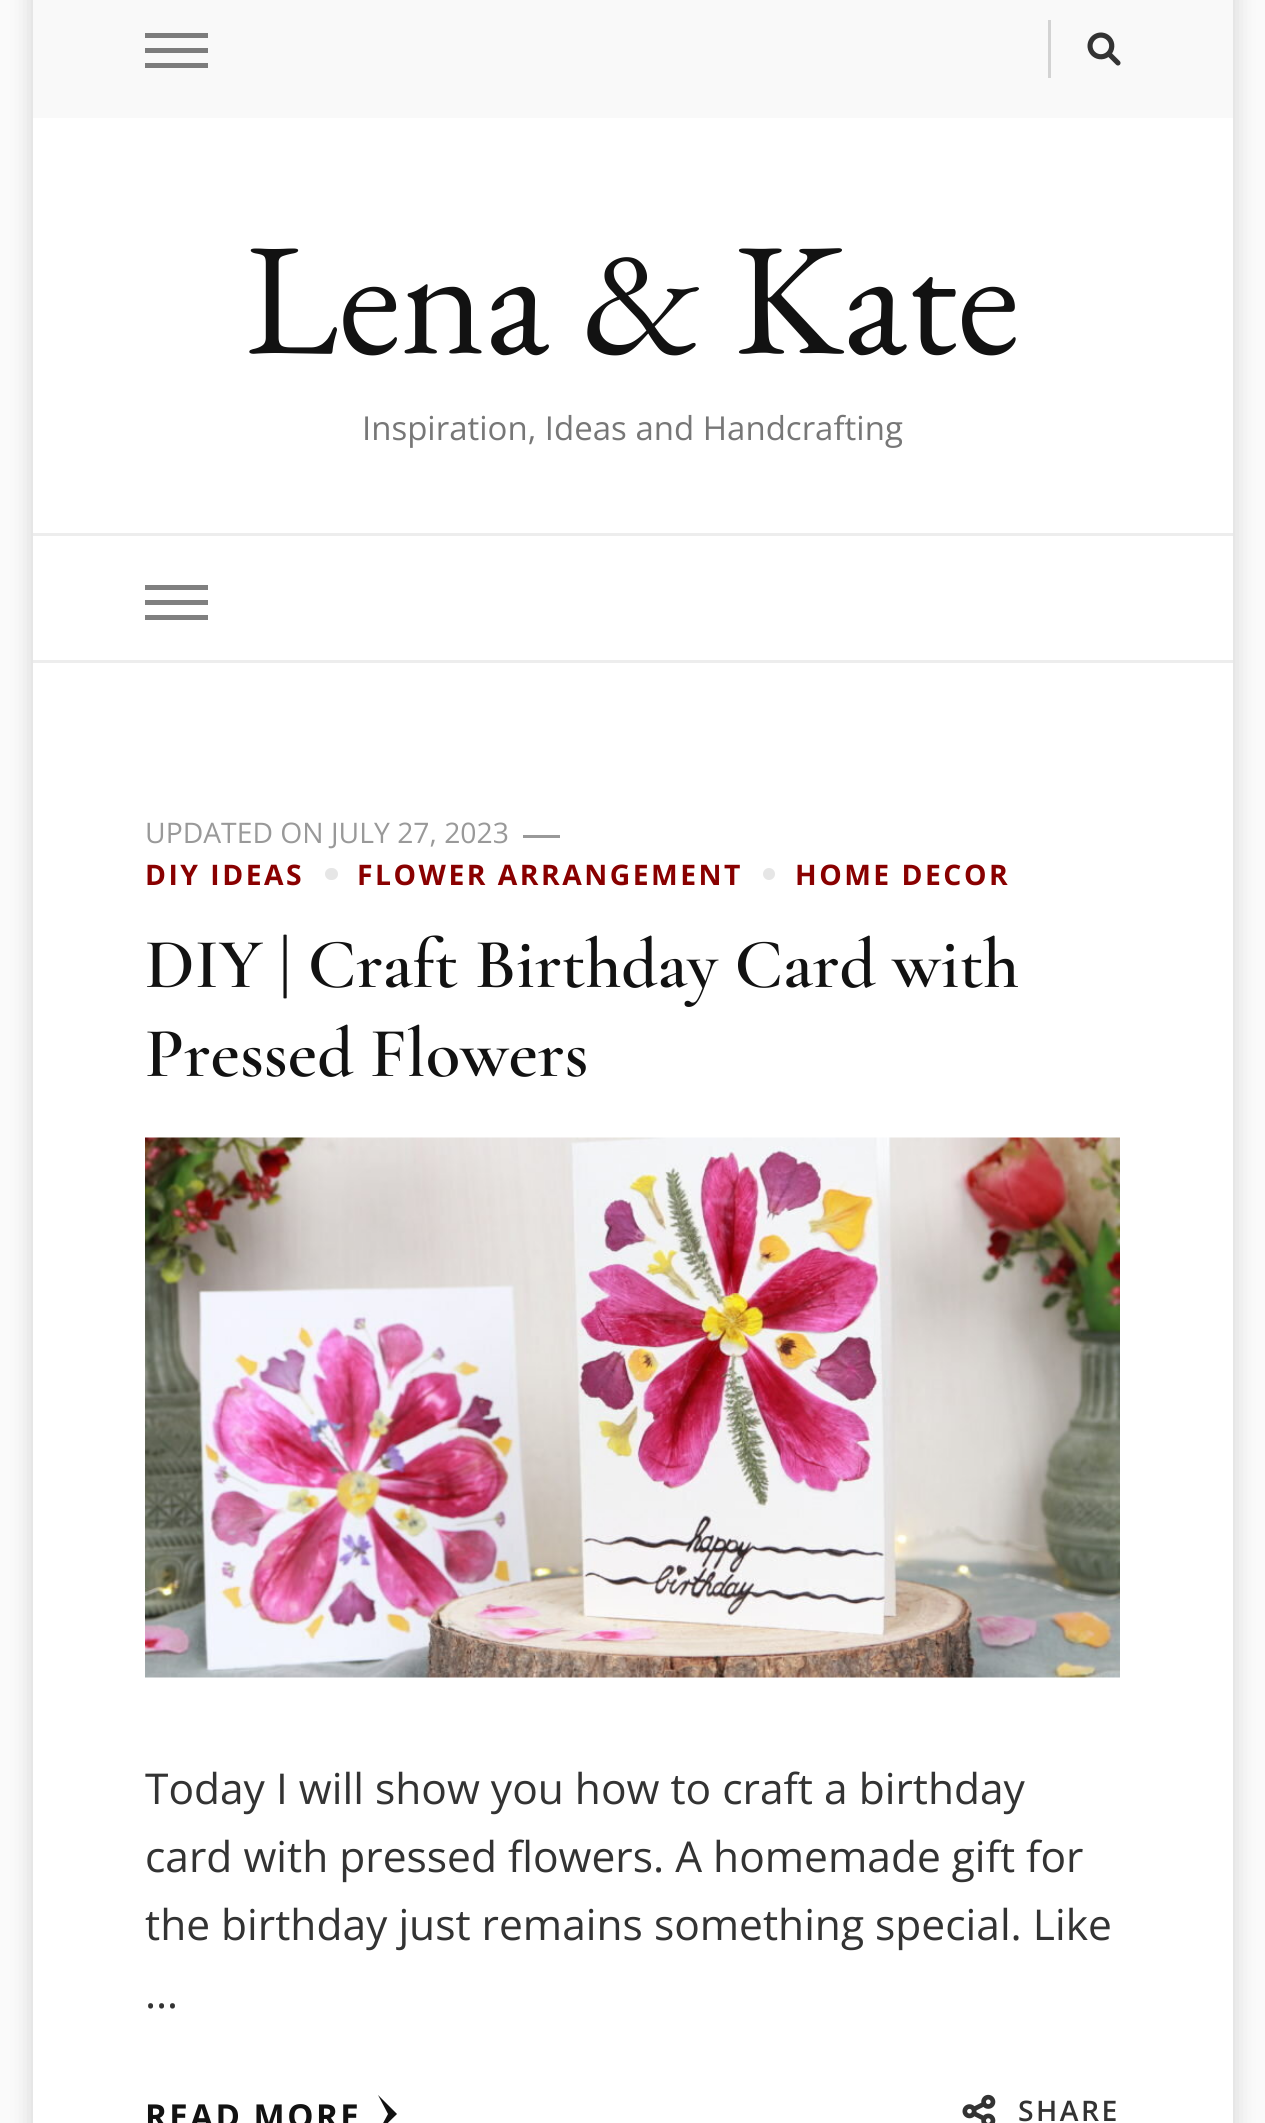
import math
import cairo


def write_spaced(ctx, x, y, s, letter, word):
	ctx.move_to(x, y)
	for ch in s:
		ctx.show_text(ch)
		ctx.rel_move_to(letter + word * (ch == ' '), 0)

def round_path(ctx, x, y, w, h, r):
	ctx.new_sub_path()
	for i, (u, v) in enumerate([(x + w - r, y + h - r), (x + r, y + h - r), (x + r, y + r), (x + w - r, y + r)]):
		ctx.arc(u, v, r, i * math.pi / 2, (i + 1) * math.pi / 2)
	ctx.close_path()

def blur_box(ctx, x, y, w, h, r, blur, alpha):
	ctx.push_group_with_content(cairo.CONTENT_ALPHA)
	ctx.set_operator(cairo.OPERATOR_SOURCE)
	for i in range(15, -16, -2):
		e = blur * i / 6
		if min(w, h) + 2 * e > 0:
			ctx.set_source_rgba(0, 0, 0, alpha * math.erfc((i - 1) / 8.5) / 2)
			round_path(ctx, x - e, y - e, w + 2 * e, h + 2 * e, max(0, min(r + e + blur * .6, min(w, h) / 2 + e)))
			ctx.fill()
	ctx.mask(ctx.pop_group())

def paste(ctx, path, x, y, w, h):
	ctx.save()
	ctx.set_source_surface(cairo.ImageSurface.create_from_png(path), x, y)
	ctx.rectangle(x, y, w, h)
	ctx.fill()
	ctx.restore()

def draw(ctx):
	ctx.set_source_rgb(0.98, 0.98, 0.98)
	ctx.paint()
	ctx.set_source_rgb(0, 0, 0)
	blur_box(ctx, 33, -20, 1200, 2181, 0, 12.5, 0.16)
	ctx.set_source_rgb(1, 1, 1)
	ctx.rectangle(33, 118, 1200, 2005)
	ctx.fill()
	ctx.set_source_rgb(0.973, 0.973, 0.973)
	ctx.rectangle(33, 0, 1200, 118)
	ctx.fill()
	ctx.set_source_rgb(0.486, 0.486, 0.486)
	ctx.rectangle(145, 33, 63, 5)
	ctx.rectangle(145, 48, 63, 5)
	ctx.rectangle(145, 63, 63, 5)
	ctx.fill()
	ctx.set_source_rgb(0.827, 0.827, 0.827)
	ctx.rectangle(1048, 20, 3, 58)
	ctx.fill()
	paste(ctx, 'media/1.png', 1087, 32, 34, 34)
	ctx.select_font_face('EB Garamond')
	ctx.set_font_size(160)
	ctx.set_source_rgb(0.071, 0.071, 0.071)
	ctx.move_to(245, 353)
	ctx.show_text('Lena & Kate')
	ctx.select_font_face('Open Sans')
	ctx.set_font_size(33)
	ctx.set_source_rgb(0.467, 0.467, 0.467)
	ctx.move_to(362, 440)
	ctx.show_text('Inspiration, Ideas and Handcrafting')
	ctx.set_source_rgb(0.929, 0.929, 0.929)
	ctx.rectangle(33, 533, 1200, 3)
	ctx.rectangle(33, 660, 1200, 3)
	ctx.fill()
	ctx.set_source_rgb(0.502, 0.502, 0.502)
	ctx.rectangle(145, 585, 63, 5)
	ctx.rectangle(145, 600, 63, 5)
	ctx.rectangle(145, 615, 63, 5)
	ctx.fill()
	ctx.set_font_size(28.3)
	ctx.set_source_rgb(0.6, 0.6, 0.6)
	ctx.move_to(145, 843)
	ctx.show_text('UPDATED ON JULY 27, 2023')
	ctx.rectangle(523, 835, 37, 3)
	ctx.fill()
	ctx.select_font_face('Open Sans', cairo.FONT_SLANT_NORMAL, cairo.FONT_WEIGHT_BOLD)
	ctx.set_source_rgb(0.537, 0, 0)
	write_spaced(ctx, 145, 885, 'DIY IDEAS', 2.5, 0)
	ctx.set_source_rgb(0.902, 0.902, 0.902)
	round_path(ctx, 325, 868, 13, 12, 6)
	ctx.fill()
	ctx.set_source_rgb(0.537, 0, 0)
	write_spaced(ctx, 357, 885, 'FLOWER ARRANGEMENT', 2.5, 0)
	ctx.set_source_rgb(0.902, 0.902, 0.902)
	ctx.new_path()
	ctx.arc(769, 874, 6, 0, 2 * math.pi)
	ctx.fill()
	ctx.set_source_rgb(0.537, 0, 0)
	write_spaced(ctx, 795, 885, 'HOME DECOR', 2.5, 0)
	ctx.select_font_face('Cormorant Garamond SemiBold')
	ctx.set_font_size(71)
	ctx.set_source_rgb(0.071, 0.071, 0.071)
	ctx.move_to(145, 987)
	ctx.show_text('DIY | Craft Birthday Card with')
	ctx.move_to(145, 1076)
	ctx.show_text('Pressed Flowers')
	paste(ctx, 'media/2.png', 145, 1137, 975, 541)
	ctx.select_font_face('Open Sans')
	ctx.set_font_size(42.5)
	ctx.set_source_rgb(0.2, 0.2, 0.2)
	for x, y, s in [
		(145, 1804, 'Today I will show you how to craft a birthday'),
		(145, 1872, 'card with pressed flowers. A homemade gift for'),
		(145, 1940, 'the birthday just remains something special. Like'),
		(145, 2008, '…'),
	]:
		ctx.move_to(x, y)
		ctx.show_text(s)
	ctx.select_font_face('Open Sans', cairo.FONT_SLANT_NORMAL, cairo.FONT_WEIGHT_BOLD)
	ctx.set_font_size(33)
	ctx.set_source_rgb(0.071, 0.071, 0.071)
	write_spaced(ctx, 145, 2128, 'READ MORE', 2.5, 0)
	ctx.new_path()
	ctx.move_to(397, 2114)
	ctx.line_to(378, 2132.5)
	ctx.line_to(388, 2114)
	ctx.line_to(378, 2095)
	ctx.close_path()
	ctx.fill()
	paste(ctx, 'media/3.png', 962, 2094, 34, 29)
	ctx.select_font_face('Open Sans SemiBold')
	ctx.set_font_size(28.3)
	ctx.set_source_rgb(0.2, 0.2, 0.2)
	write_spaced(ctx, 1018, 2121, 'SHARE', 2.5, 0)


surface = cairo.ImageSurface(cairo.FORMAT_RGB24, 1265, 2123)
ctx = cairo.Context(surface)
options = cairo.FontOptions()
options.set_hint_metrics(cairo.HINT_METRICS_OFF)
options.set_hint_style(cairo.HINT_STYLE_NONE)
ctx.set_font_options(options)
ctx.set_miter_limit(4)
draw(ctx)
surface.write_to_png('image.png')
